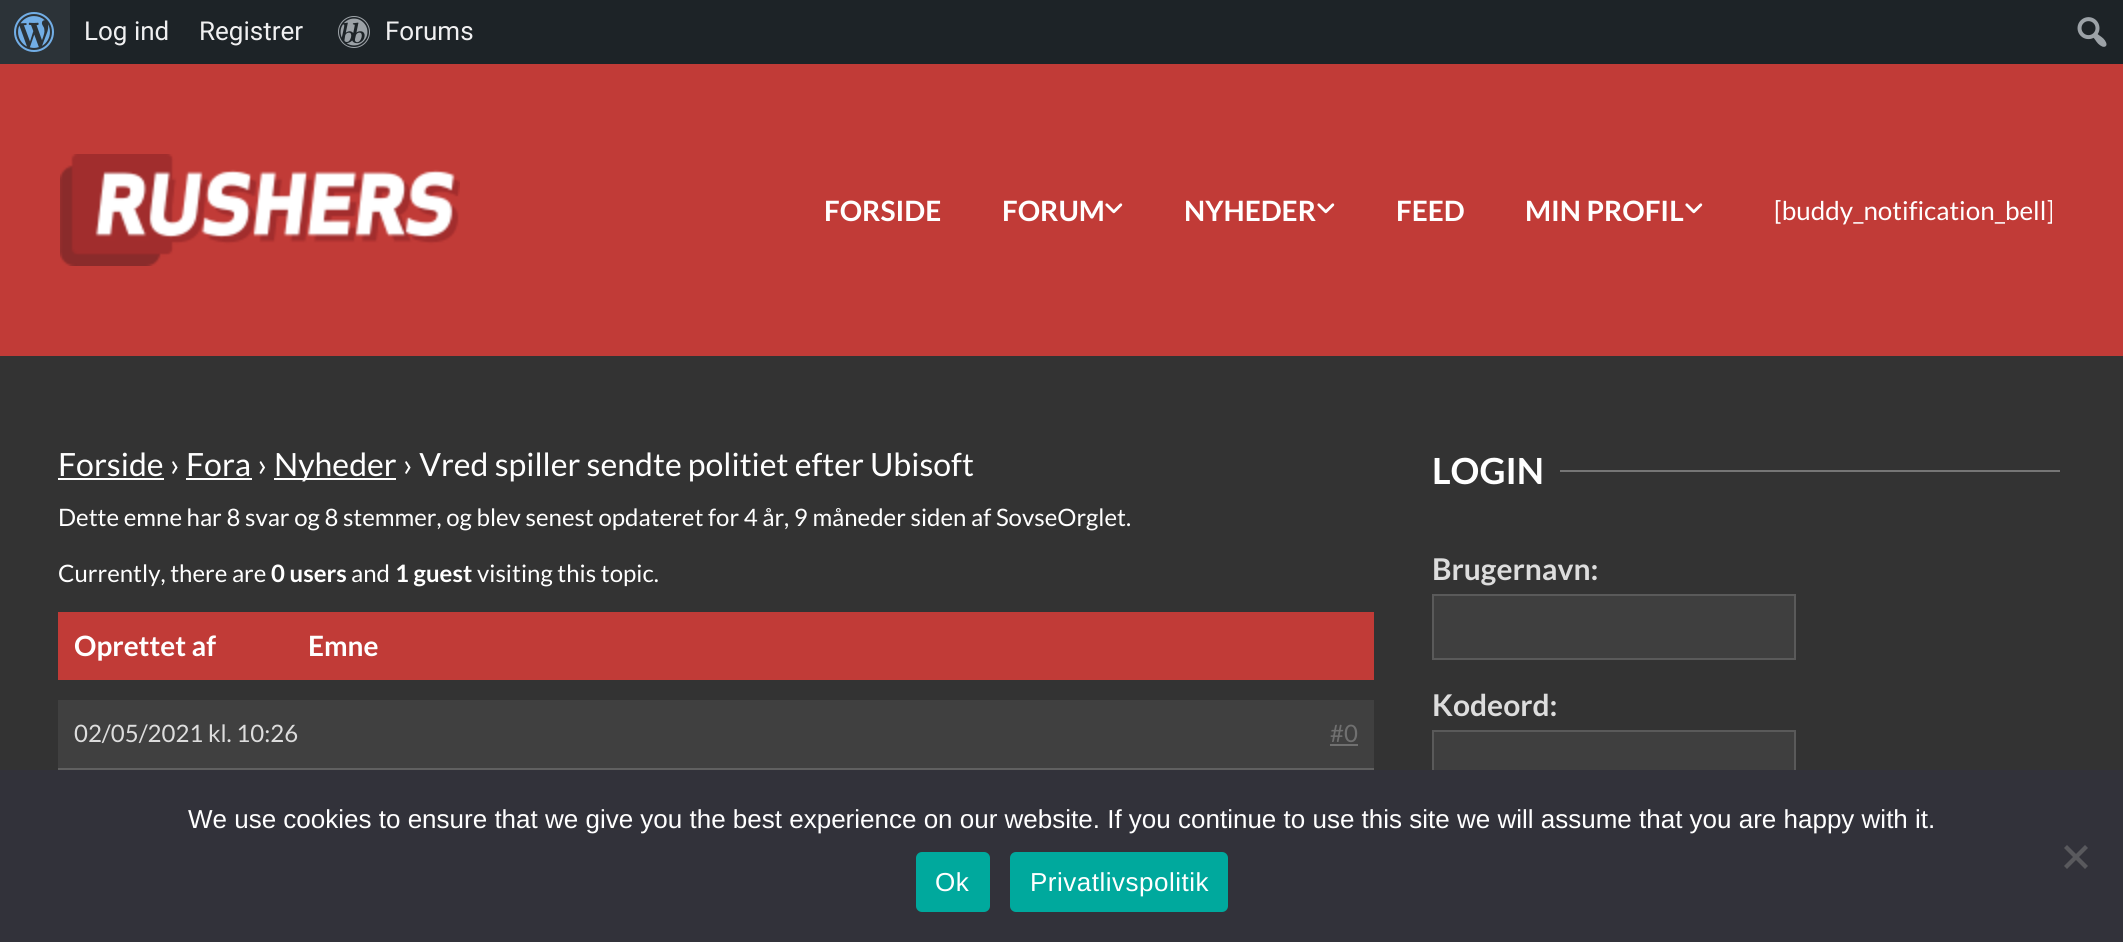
import math
import cairo


def write_spaced(ctx, x, y, s, letter, word):
	ctx.move_to(x, y)
	for ch in s:
		ctx.show_text(ch)
		ctx.rel_move_to(letter + word * (ch == ' '), 0)

def round_path(ctx, x, y, w, h, r):
	ctx.new_sub_path()
	for i, (u, v) in enumerate([(x + w - r, y + h - r), (x + r, y + h - r), (x + r, y + r), (x + w - r, y + r)]):
		ctx.arc(u, v, r, i * math.pi / 2, (i + 1) * math.pi / 2)
	ctx.close_path()

def paste(ctx, path, x, y, w, h):
	ctx.save()
	ctx.set_source_surface(cairo.ImageSurface.create_from_png(path), x, y)
	ctx.rectangle(x, y, w, h)
	ctx.fill()
	ctx.restore()

def draw(ctx):
	ctx.set_source_rgb(0.2, 0.2, 0.2)
	ctx.paint()
	ctx.set_source_rgb(0.114, 0.137, 0.153)
	ctx.rectangle(70, 0, 2053, 64)
	ctx.fill()
	ctx.set_source_rgb(0.173, 0.2, 0.22)
	ctx.rectangle(0, 0, 70, 64)
	ctx.fill()
	paste(ctx, 'media/1.png', 14, 12, 40, 40)
	ctx.select_font_face('Roboto')
	ctx.set_font_size(26)
	ctx.set_source_rgb(0.941, 0.941, 0.945)
	ctx.move_to(84, 40)
	ctx.show_text('Log ind')
	ctx.move_to(199, 40)
	ctx.show_text('Registrer')
	paste(ctx, 'media/2.png', 338, 16, 32, 32)
	ctx.move_to(385, 40)
	ctx.show_text('Forums')
	paste(ctx, 'media/3.png', 2077, 17, 30, 30)
	ctx.set_source_rgb(0.757, 0.231, 0.216)
	ctx.rectangle(0, 64, 2123, 292)
	ctx.fill()
	paste(ctx, 'media/4.png', 60, 154, 400, 112)
	ctx.select_font_face('Lato', cairo.FONT_SLANT_NORMAL, cairo.FONT_WEIGHT_BOLD)
	ctx.set_font_size(28)
	ctx.set_source_rgb(1, 1, 1)
	ctx.move_to(824, 221)
	ctx.show_text('FORSIDE')
	ctx.move_to(1002, 221)
	ctx.show_text('FORUM')
	paste(ctx, 'media/5.png', 1105, 203, 18, 11)
	ctx.move_to(1184, 221)
	ctx.show_text('NYHEDER')
	paste(ctx, 'media/5.png', 1317, 203, 18, 11)
	ctx.move_to(1396, 221)
	ctx.show_text('FEED')
	ctx.move_to(1525, 221)
	ctx.show_text('MIN PROFIL')
	paste(ctx, 'media/5.png', 1685, 203, 18, 11)
	ctx.select_font_face('Lato')
	ctx.set_font_size(26)
	ctx.move_to(1774, 220)
	ctx.show_text('[buddy_notification_bell]')
	ctx.set_font_size(32)
	ctx.move_to(58, 476)
	ctx.show_text('Forside › Fora ›')
	ctx.rectangle(58, 478, 106, 2)
	ctx.fill()
	ctx.rectangle(274, 478, 122, 2)
	ctx.fill()
	ctx.move_to(274, 476)
	ctx.show_text('Nyheder › Vred spiller sendte politiet efter Ubisoft')
	ctx.rectangle(186, 478, 66, 2)
	ctx.fill()
	ctx.set_font_size(24)
	ctx.move_to(58, 526)
	ctx.show_text('Dette emne har 8 svar og 8 stemmer, og blev senest opdateret for 4 år, 9 måneder siden af SovseOrglet.')
	ctx.move_to(58, 582)
	ctx.show_text('Currently, there are')
	ctx.select_font_face('Lato', cairo.FONT_SLANT_NORMAL, cairo.FONT_WEIGHT_BOLD)
	ctx.move_to(271, 582)
	ctx.show_text('0 users')
	ctx.select_font_face('Lato')
	ctx.move_to(351, 582)
	ctx.show_text('and')
	ctx.select_font_face('Lato', cairo.FONT_SLANT_NORMAL, cairo.FONT_WEIGHT_BOLD)
	ctx.move_to(395, 582)
	ctx.show_text('1 guest')
	ctx.select_font_face('Lato')
	ctx.move_to(477, 582)
	ctx.show_text('visiting this topic.')
	ctx.set_source_rgb(0.251, 0.251, 0.251)
	ctx.rectangle(58, 700, 1316, 68)
	ctx.fill()
	ctx.set_source_rgb(0.757, 0.231, 0.216)
	ctx.rectangle(58, 612, 1316, 68)
	ctx.fill()
	ctx.select_font_face('Lato', cairo.FONT_SLANT_NORMAL, cairo.FONT_WEIGHT_BOLD)
	ctx.set_font_size(28)
	ctx.set_source_rgb(1, 1, 1)
	ctx.move_to(74, 656)
	ctx.show_text('Oprettet af')
	ctx.move_to(308, 656)
	ctx.show_text('Emne')
	ctx.set_source_rgb(0.376, 0.376, 0.376)
	ctx.rectangle(58, 768, 1316, 2)
	ctx.fill()
	ctx.select_font_face('Lato')
	ctx.set_font_size(24)
	ctx.set_source_rgb(0.867, 0.867, 0.867)
	ctx.move_to(74, 742)
	ctx.show_text('02/05/2021 kl. 10:26')
	ctx.set_source_rgb(0.439, 0.439, 0.439)
	ctx.move_to(1330, 742)
	ctx.show_text('#0')
	ctx.rectangle(1330, 744, 28, 2)
	ctx.fill()
	ctx.select_font_face('Lato', cairo.FONT_SLANT_NORMAL, cairo.FONT_WEIGHT_BOLD)
	ctx.set_font_size(36)
	ctx.set_source_rgb(1, 1, 1)
	ctx.move_to(1432, 484)
	ctx.show_text('LOGIN')
	ctx.set_source_rgb(0.463, 0.463, 0.463)
	ctx.rectangle(1560, 470, 500, 2)
	ctx.fill()
	ctx.set_font_size(30)
	ctx.set_source_rgb(0.867, 0.867, 0.867)
	ctx.move_to(1432, 580)
	ctx.show_text('Brugernavn:')
	ctx.set_source_rgb(0.247, 0.247, 0.247)
	ctx.rectangle(1433, 595, 362, 64)
	ctx.fill_preserve()
	ctx.set_source_rgb(0.353, 0.353, 0.353)
	ctx.stroke()
	ctx.set_source_rgb(0.867, 0.867, 0.867)
	ctx.move_to(1432, 716)
	ctx.show_text('Kodeord:')
	ctx.set_source_rgb(0.247, 0.247, 0.247)
	ctx.rectangle(1434, 732, 360, 38)
	ctx.fill()
	ctx.rectangle(1433, 731, 362, 64)
	ctx.set_source_rgb(0.353, 0.353, 0.353)
	ctx.stroke()
	ctx.set_source_rgb(0.196, 0.196, 0.227)
	ctx.rectangle(0, 770, 2123, 172)
	ctx.fill()
	ctx.select_font_face('Liberation Sans')
	ctx.set_font_size(26)
	ctx.set_source_rgb(1, 1, 1)
	ctx.move_to(188, 828)
	ctx.show_text('We use cookies to ensure that we give you the best experience on our website. If you continue to use this site we will assume that you are happy with it.')
	ctx.set_source_rgb(0.349, 0.349, 0.365)
	ctx.new_path()
	ctx.move_to(2085, 845)
	ctx.line_to(2088, 848)
	ctx.line_to(2067, 869)
	ctx.line_to(2064, 866)
	ctx.close_path()
	ctx.fill()
	ctx.new_path()
	ctx.move_to(2064, 848)
	ctx.line_to(2067, 845)
	ctx.line_to(2088, 866)
	ctx.line_to(2085, 869)
	ctx.close_path()
	ctx.fill()
	ctx.set_source_rgb(0, 0.663, 0.616)
	round_path(ctx, 916, 852, 74, 60, 6)
	ctx.fill()
	ctx.set_source_rgb(1, 1, 1)
	write_spaced(ctx, 935, 891, 'Ok', 0.5, 0)
	ctx.set_source_rgb(0, 0.663, 0.616)
	round_path(ctx, 1010, 852, 218, 60, 6)
	ctx.fill()
	ctx.set_source_rgb(1, 1, 1)
	write_spaced(ctx, 1030, 891, 'Privatlivspolitik', 0.5, 0)


surface = cairo.ImageSurface(cairo.FORMAT_RGB24, 2123, 942)
ctx = cairo.Context(surface)
options = cairo.FontOptions()
options.set_hint_metrics(cairo.HINT_METRICS_OFF)
options.set_hint_style(cairo.HINT_STYLE_NONE)
ctx.set_font_options(options)
ctx.set_miter_limit(4)
draw(ctx)
surface.write_to_png('image.png')
